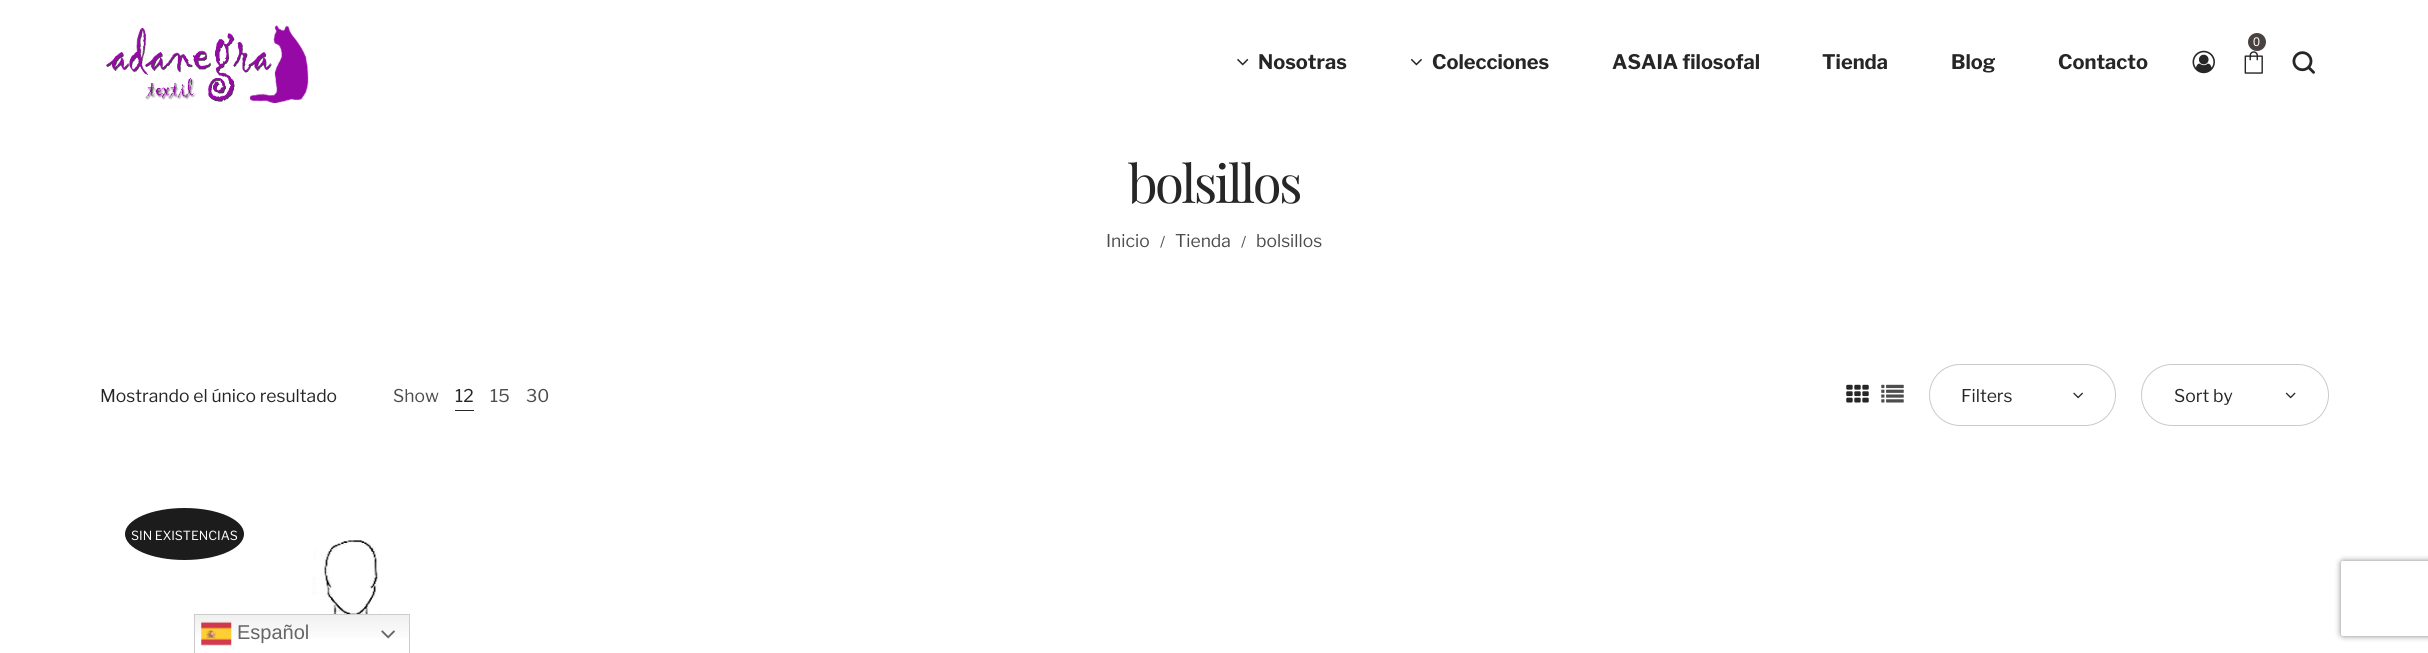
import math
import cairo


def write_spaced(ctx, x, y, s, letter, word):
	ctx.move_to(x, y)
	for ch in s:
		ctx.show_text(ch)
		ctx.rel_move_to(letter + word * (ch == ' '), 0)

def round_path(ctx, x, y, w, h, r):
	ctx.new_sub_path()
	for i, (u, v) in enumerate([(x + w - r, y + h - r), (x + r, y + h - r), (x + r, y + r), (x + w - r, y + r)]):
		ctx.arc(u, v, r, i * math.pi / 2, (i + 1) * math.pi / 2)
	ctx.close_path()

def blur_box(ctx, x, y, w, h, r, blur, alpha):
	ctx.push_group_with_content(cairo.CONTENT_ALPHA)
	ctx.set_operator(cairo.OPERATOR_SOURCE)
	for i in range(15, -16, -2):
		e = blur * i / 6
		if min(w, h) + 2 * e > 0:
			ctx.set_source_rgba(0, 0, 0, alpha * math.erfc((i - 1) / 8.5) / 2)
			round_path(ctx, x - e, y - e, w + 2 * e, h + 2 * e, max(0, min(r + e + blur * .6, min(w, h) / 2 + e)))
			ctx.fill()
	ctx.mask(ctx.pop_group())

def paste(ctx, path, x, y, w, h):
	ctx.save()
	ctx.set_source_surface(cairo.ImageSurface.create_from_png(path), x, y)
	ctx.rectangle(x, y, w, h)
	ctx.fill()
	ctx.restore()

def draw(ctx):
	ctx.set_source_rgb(1, 1, 1)
	ctx.paint()
	paste(ctx, 'media/1.png', 106, 25, 203, 78)
	ctx.set_source_rgb(0.29, 0.255, 0.255)
	ctx.arc(2257, 42, 9, 0, 2 * math.pi)
	ctx.fill()
	ctx.select_font_face('Liberation Sans')
	ctx.set_font_size(12.5)
	ctx.set_source_rgb(1, 1, 1)
	ctx.move_to(2253, 46)
	ctx.show_text('0')
	paste(ctx, 'media/2.png', 2244, 51, 19, 23)
	paste(ctx, 'media/3.png', 1237, 58, 12, 8)
	ctx.select_font_face('Libre Franklin', cairo.FONT_SLANT_NORMAL, cairo.FONT_WEIGHT_BOLD)
	ctx.set_font_size(20)
	ctx.set_source_rgb(0.149, 0.149, 0.149)
	ctx.move_to(1258, 69)
	ctx.show_text('Nosotras')
	paste(ctx, 'media/4.png', 1410, 58, 12, 8)
	for x, y, s in [
		(1432, 69, 'Colecciones'),
		(1612, 69, 'ASAIA filosofal'),
		(1822, 69, 'Tienda'),
		(1951, 69, 'Blog'),
		(2058, 69, 'Contacto'),
	]:
		ctx.move_to(x, y)
		ctx.show_text(s)
	paste(ctx, 'media/5.png', 2192, 50, 23, 24)
	paste(ctx, 'media/6.png', 2292, 51, 23, 23)
	ctx.select_font_face('Playfair Display')
	ctx.set_font_size(52.5)
	write_spaced(ctx, 1128, 203, 'bolsillos', -2.5, 0)
	ctx.select_font_face('Libre Franklin')
	ctx.set_font_size(17.5)
	ctx.set_source_rgb(0.302, 0.302, 0.302)
	ctx.move_to(1106, 247)
	ctx.show_text('Inicio')
	ctx.set_font_size(15)
	ctx.move_to(1160, 247)
	ctx.show_text('/')
	ctx.set_font_size(17.5)
	ctx.move_to(1175, 247)
	ctx.show_text('Tienda')
	ctx.set_font_size(15)
	ctx.move_to(1241, 247)
	ctx.show_text('/')
	ctx.set_font_size(17.5)
	ctx.move_to(1256, 247)
	ctx.show_text('bolsillos')
	ctx.set_source_rgb(0.149, 0.149, 0.149)
	ctx.move_to(100, 402)
	ctx.show_text('Mostrando el único resultado')
	ctx.set_source_rgb(0.302, 0.302, 0.302)
	ctx.move_to(393, 402)
	ctx.show_text('Show')
	ctx.set_source_rgb(0.149, 0.149, 0.149)
	ctx.rectangle(455, 410, 19, 1)
	ctx.fill()
	ctx.move_to(455, 402)
	ctx.show_text('12')
	ctx.set_source_rgb(0.302, 0.302, 0.302)
	ctx.move_to(490, 402)
	ctx.show_text('15')
	ctx.move_to(526, 402)
	ctx.show_text('30')
	paste(ctx, 'media/7.png', 1846, 384, 23, 19)
	paste(ctx, 'media/8.png', 1881, 384, 23, 19)
	round_path(ctx, 1929.5, 364.5, 186, 61, 30.5)
	ctx.set_source_rgb(0.792, 0.792, 0.792)
	ctx.set_line_width(1)
	ctx.stroke()
	ctx.set_source_rgb(0.149, 0.149, 0.149)
	ctx.move_to(1961, 402)
	ctx.show_text('Filters')
	paste(ctx, 'media/9.png', 2073, 392, 10, 7)
	round_path(ctx, 2141.5, 364.5, 187, 61, 30.5)
	ctx.set_source_rgb(0.792, 0.792, 0.792)
	ctx.stroke()
	ctx.set_source_rgb(0.149, 0.149, 0.149)
	ctx.move_to(2174, 402)
	ctx.show_text('Sort by')
	paste(ctx, 'media/10.png', 2285, 392, 11, 7)
	ctx.set_source_rgb(0.11, 0.11, 0.11)
	ctx.new_path()
	ctx.move_to(184.5, 508)
	ctx.curve_to(217.5, 508, 244, 519.5, 244, 534)
	ctx.curve_to(244, 548.5, 217.5, 560, 184.5, 560)
	ctx.curve_to(151.5, 560, 125, 548.5, 125, 534)
	ctx.curve_to(125, 519.5, 151.5, 508, 184.5, 508)
	ctx.close_path()
	ctx.fill()
	ctx.set_font_size(12.5)
	ctx.set_source_rgb(1, 1, 1)
	ctx.move_to(131, 540)
	ctx.show_text('SIN EXISTENCIAS')
	paste(ctx, 'media/11.png', 294, 540, 116, 74)
	gradient = cairo.LinearGradient(302, 614, 302, 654)
	gradient.add_color_stop_rgba(0, 0.937, 0.937, 0.937, 1)
	gradient.add_color_stop_rgba(0.7, 1, 1, 1, 1)
	ctx.set_source(gradient)
	ctx.rectangle(195, 615, 214, 23)
	ctx.fill()
	ctx.rectangle(194.5, 614.5, 215, 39)
	ctx.set_source_rgb(0.8, 0.8, 0.8)
	ctx.stroke()
	paste(ctx, 'media/12.png', 201, 621, 31, 25)
	ctx.select_font_face('Liberation Sans')
	ctx.set_font_size(20)
	ctx.set_source_rgb(0.4, 0.4, 0.4)
	ctx.move_to(237, 639)
	ctx.show_text('Español')
	paste(ctx, 'media/13.png', 381, 630, 14, 9)
	ctx.save()
	ctx.set_fill_rule(cairo.FILL_RULE_EVEN_ODD)
	ctx.new_path()
	ctx.move_to(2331, 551)
	ctx.line_to(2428, 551)
	ctx.line_to(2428, 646)
	ctx.line_to(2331, 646)
	ctx.close_path()
	ctx.move_to(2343.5, 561)
	ctx.line_to(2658.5, 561)
	ctx.curve_to(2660, 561, 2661, 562, 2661, 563.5)
	ctx.line_to(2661, 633.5)
	ctx.curve_to(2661, 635, 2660, 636, 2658.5, 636)
	ctx.line_to(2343.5, 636)
	ctx.curve_to(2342, 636, 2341, 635, 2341, 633.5)
	ctx.line_to(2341, 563.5)
	ctx.curve_to(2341, 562, 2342, 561, 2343.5, 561)
	ctx.close_path()
	ctx.clip()
	ctx.set_source_rgb(0.502, 0.502, 0.502)
	blur_box(ctx, 2341, 561, 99, 75, 2.5, 3, 1)
	ctx.restore()


surface = cairo.ImageSurface(cairo.FORMAT_RGB24, 2428, 653)
ctx = cairo.Context(surface)
options = cairo.FontOptions()
options.set_hint_metrics(cairo.HINT_METRICS_OFF)
options.set_hint_style(cairo.HINT_STYLE_NONE)
ctx.set_font_options(options)
ctx.set_miter_limit(4)
draw(ctx)
surface.write_to_png('image.png')
